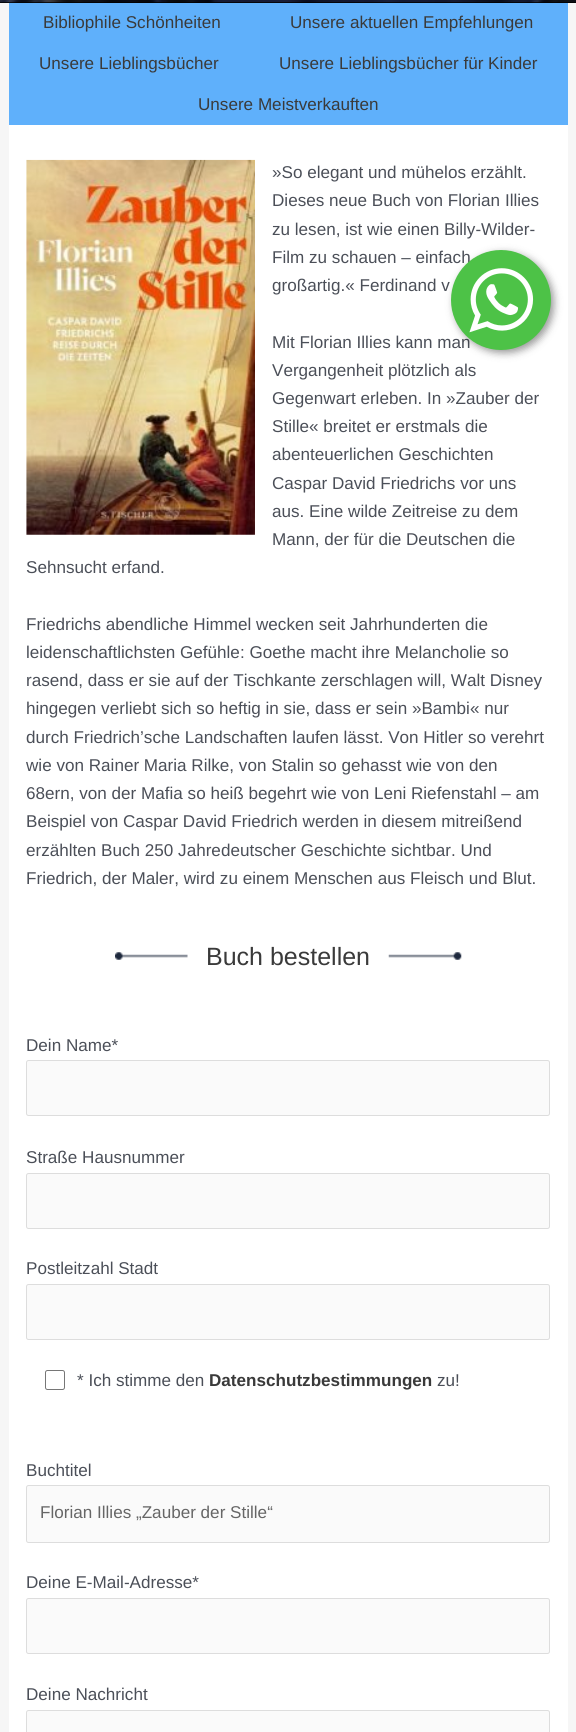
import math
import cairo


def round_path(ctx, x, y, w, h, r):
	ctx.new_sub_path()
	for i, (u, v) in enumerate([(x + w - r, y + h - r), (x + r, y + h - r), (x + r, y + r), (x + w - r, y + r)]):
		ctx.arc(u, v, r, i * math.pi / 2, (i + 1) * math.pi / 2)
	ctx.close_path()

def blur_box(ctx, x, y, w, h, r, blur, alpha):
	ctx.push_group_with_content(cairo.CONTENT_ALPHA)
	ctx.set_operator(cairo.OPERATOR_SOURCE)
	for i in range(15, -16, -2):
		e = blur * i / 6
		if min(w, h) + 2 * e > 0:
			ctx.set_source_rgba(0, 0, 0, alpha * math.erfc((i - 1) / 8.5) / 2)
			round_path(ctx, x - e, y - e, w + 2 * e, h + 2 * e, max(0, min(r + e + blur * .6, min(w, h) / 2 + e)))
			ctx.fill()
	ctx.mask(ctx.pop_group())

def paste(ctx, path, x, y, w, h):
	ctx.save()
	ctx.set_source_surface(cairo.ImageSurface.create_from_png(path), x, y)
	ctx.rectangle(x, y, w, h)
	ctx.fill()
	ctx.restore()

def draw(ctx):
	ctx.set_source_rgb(0.961, 0.961, 0.961)
	ctx.paint()
	ctx.set_source_rgb(0, 0, 0)
	ctx.rectangle(0, 0, 576, 3)
	ctx.fill()
	paste(ctx, 'media/1.png', 0, 0, 576, 3)
	ctx.set_source_rgb(0.373, 0.69, 0.984)
	ctx.rectangle(9, 3, 559, 41)
	ctx.fill()
	ctx.select_font_face('Liberation Sans')
	ctx.set_font_size(17.1)
	ctx.set_source_rgb(0.227, 0.227, 0.227)
	ctx.move_to(43, 28)
	ctx.show_text('Bibliophile Schönheiten')
	ctx.move_to(290, 28)
	ctx.show_text('Unsere aktuellen Empfehlungen')
	ctx.set_source_rgb(0.373, 0.69, 0.984)
	ctx.rectangle(9, 44, 559, 81)
	ctx.fill()
	ctx.set_source_rgb(0.227, 0.227, 0.227)
	for x, y, s in [
		(39, 69, 'Unsere Lieblingsbücher'),
		(279, 69, 'Unsere Lieblingsbücher für Kinder'),
		(198, 110, 'Unsere Meistverkauften'),
	]:
		ctx.move_to(x, y)
		ctx.show_text(s)
	ctx.set_source_rgb(1, 1, 1)
	ctx.rectangle(9, 125, 559, 1607)
	ctx.fill()
	paste(ctx, 'media/2.png', 26, 159, 229, 376)
	ctx.set_source_rgb(0.294, 0.31, 0.345)
	for x, y, s in [
		(272, 178, '»So elegant und mühelos erzählt.'),
		(272, 206, 'Dieses neue Buch von Florian Illies'),
		(272, 235, 'zu lesen, ist wie einen Billy-Wilder-'),
		(272, 263, 'Film zu schauen – einfach'),
		(272, 291, 'großartig.« Ferdinand v'),
		(272, 348, 'Mit Florian Illies kann man'),
		(272, 376, 'Vergangenheit plötzlich als'),
		(272, 404, 'Gegenwart erleben. In »Zauber der'),
		(272, 432, 'Stille« breitet er erstmals die'),
		(272, 460, 'abenteuerlichen Geschichten'),
		(272, 489, 'Caspar David Friedrichs vor uns'),
		(272, 517, 'aus. Eine wilde Zeitreise zu dem'),
		(272, 545, 'Mann, der für die Deutschen die'),
		(26, 573, 'Sehnsucht erfand.'),
		(26, 630, 'Friedrichs abendliche Himmel wecken seit Jahrhunderten die'),
		(26, 658, 'leidenschaftlichsten Gefühle: Goethe macht ihre Melancholie so'),
		(26, 686, 'rasend, dass er sie auf der Tischkante zerschlagen will, Walt Disney'),
		(26, 714, 'hingegen verliebt sich so heftig in sie, dass er sein »Bambi« nur'),
		(26, 743, 'durch Friedrich’sche Landschaften laufen lässt. Von Hitler so verehrt'),
		(26, 771, 'wie von Rainer Maria Rilke, von Stalin so gehasst wie von den'),
		(26, 799, '68ern, von der Mafia so heiß begehrt wie von Leni Riefenstahl – am'),
		(26, 827, 'Beispiel von Caspar David Friedrich werden in diesem mitreißend'),
		(26, 856, 'erzählten Buch 250 Jahredeutscher Geschichte sichtbar. Und'),
		(26, 884, 'Friedrich, der Maler, wird zu einem Menschen aus Fleisch und Blut.'),
	]:
		ctx.move_to(x, y)
		ctx.show_text(s)
	paste(ctx, 'media/3.png', 115, 952, 73, 8)
	ctx.set_font_size(25)
	ctx.set_source_rgb(0.227, 0.227, 0.227)
	ctx.move_to(206, 965)
	ctx.show_text('Buch bestellen')
	paste(ctx, 'media/4.png', 388, 952, 74, 8)
	ctx.set_font_size(17.1)
	ctx.set_source_rgb(0.294, 0.31, 0.345)
	ctx.move_to(26, 1051)
	ctx.show_text('Dein Name*')
	ctx.set_source_rgb(0.98, 0.98, 0.98)
	round_path(ctx, 26.5, 1060.5, 523, 55, 2)
	ctx.fill_preserve()
	ctx.set_source_rgb(0.867, 0.867, 0.867)
	ctx.set_line_width(1)
	ctx.stroke()
	ctx.set_source_rgb(0.294, 0.31, 0.345)
	ctx.move_to(26, 1163)
	ctx.show_text('Straße Hausnummer')
	ctx.set_source_rgb(0.98, 0.98, 0.98)
	round_path(ctx, 26.5, 1173.5, 523, 55, 2)
	ctx.fill_preserve()
	ctx.set_source_rgb(0.867, 0.867, 0.867)
	ctx.stroke()
	ctx.set_source_rgb(0.294, 0.31, 0.345)
	ctx.move_to(26, 1274)
	ctx.show_text('Postleitzahl Stadt')
	ctx.set_source_rgb(0.98, 0.98, 0.98)
	round_path(ctx, 26.5, 1284.5, 523, 55, 2)
	ctx.fill_preserve()
	ctx.set_source_rgb(0.867, 0.867, 0.867)
	ctx.stroke()
	round_path(ctx, 45.5, 1370.5, 19, 19, 2)
	ctx.set_source_rgb(0.463, 0.463, 0.463)
	ctx.stroke()
	ctx.set_source_rgb(0.294, 0.31, 0.345)
	ctx.move_to(77, 1386)
	ctx.show_text('* Ich stimme den')
	ctx.select_font_face('Liberation Sans', cairo.FONT_SLANT_NORMAL, cairo.FONT_WEIGHT_BOLD)
	ctx.set_source_rgb(0.227, 0.227, 0.227)
	ctx.move_to(209, 1386)
	ctx.show_text('Datenschutzbestimmungen')
	ctx.select_font_face('Liberation Sans')
	ctx.set_source_rgb(0.294, 0.31, 0.345)
	ctx.move_to(437, 1386)
	ctx.show_text('zu!')
	ctx.move_to(26, 1476)
	ctx.show_text('Buchtitel')
	ctx.set_source_rgb(0.98, 0.98, 0.98)
	round_path(ctx, 26.5, 1485.5, 523, 57, 2)
	ctx.fill_preserve()
	ctx.set_source_rgb(0.867, 0.867, 0.867)
	ctx.stroke()
	ctx.set_source_rgb(0.4, 0.4, 0.4)
	ctx.move_to(40, 1518)
	ctx.show_text('Florian Illies „Zauber der Stille“')
	ctx.set_source_rgb(0.294, 0.31, 0.345)
	ctx.move_to(26, 1588)
	ctx.show_text('Deine E-Mail-Adresse*')
	ctx.set_source_rgb(0.98, 0.98, 0.98)
	round_path(ctx, 26.5, 1598.5, 523, 55, 2)
	ctx.fill_preserve()
	ctx.set_source_rgb(0.867, 0.867, 0.867)
	ctx.stroke()
	ctx.set_source_rgb(0.294, 0.31, 0.345)
	ctx.move_to(26, 1700)
	ctx.show_text('Deine Nachricht')
	ctx.set_source_rgb(0.98, 0.98, 0.98)
	round_path(ctx, 26.5, 1710.5, 523, 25, 2)
	ctx.fill_preserve()
	ctx.set_source_rgb(0.867, 0.867, 0.867)
	ctx.stroke()
	ctx.set_source_rgb(0, 0, 0)
	blur_box(ctx, 454, 253, 100, 100, 50, 4, 0.4)
	ctx.set_source_rgb(0.302, 0.761, 0.278)
	ctx.arc(501, 300, 50, 0, 2 * math.pi)
	ctx.fill()
	paste(ctx, 'media/5.png', 469, 268, 65, 65)


surface = cairo.ImageSurface(cairo.FORMAT_RGB24, 576, 1732)
ctx = cairo.Context(surface)
options = cairo.FontOptions()
options.set_hint_metrics(cairo.HINT_METRICS_OFF)
options.set_hint_style(cairo.HINT_STYLE_NONE)
ctx.set_font_options(options)
ctx.set_miter_limit(4)
draw(ctx)
surface.write_to_png('image.png')
